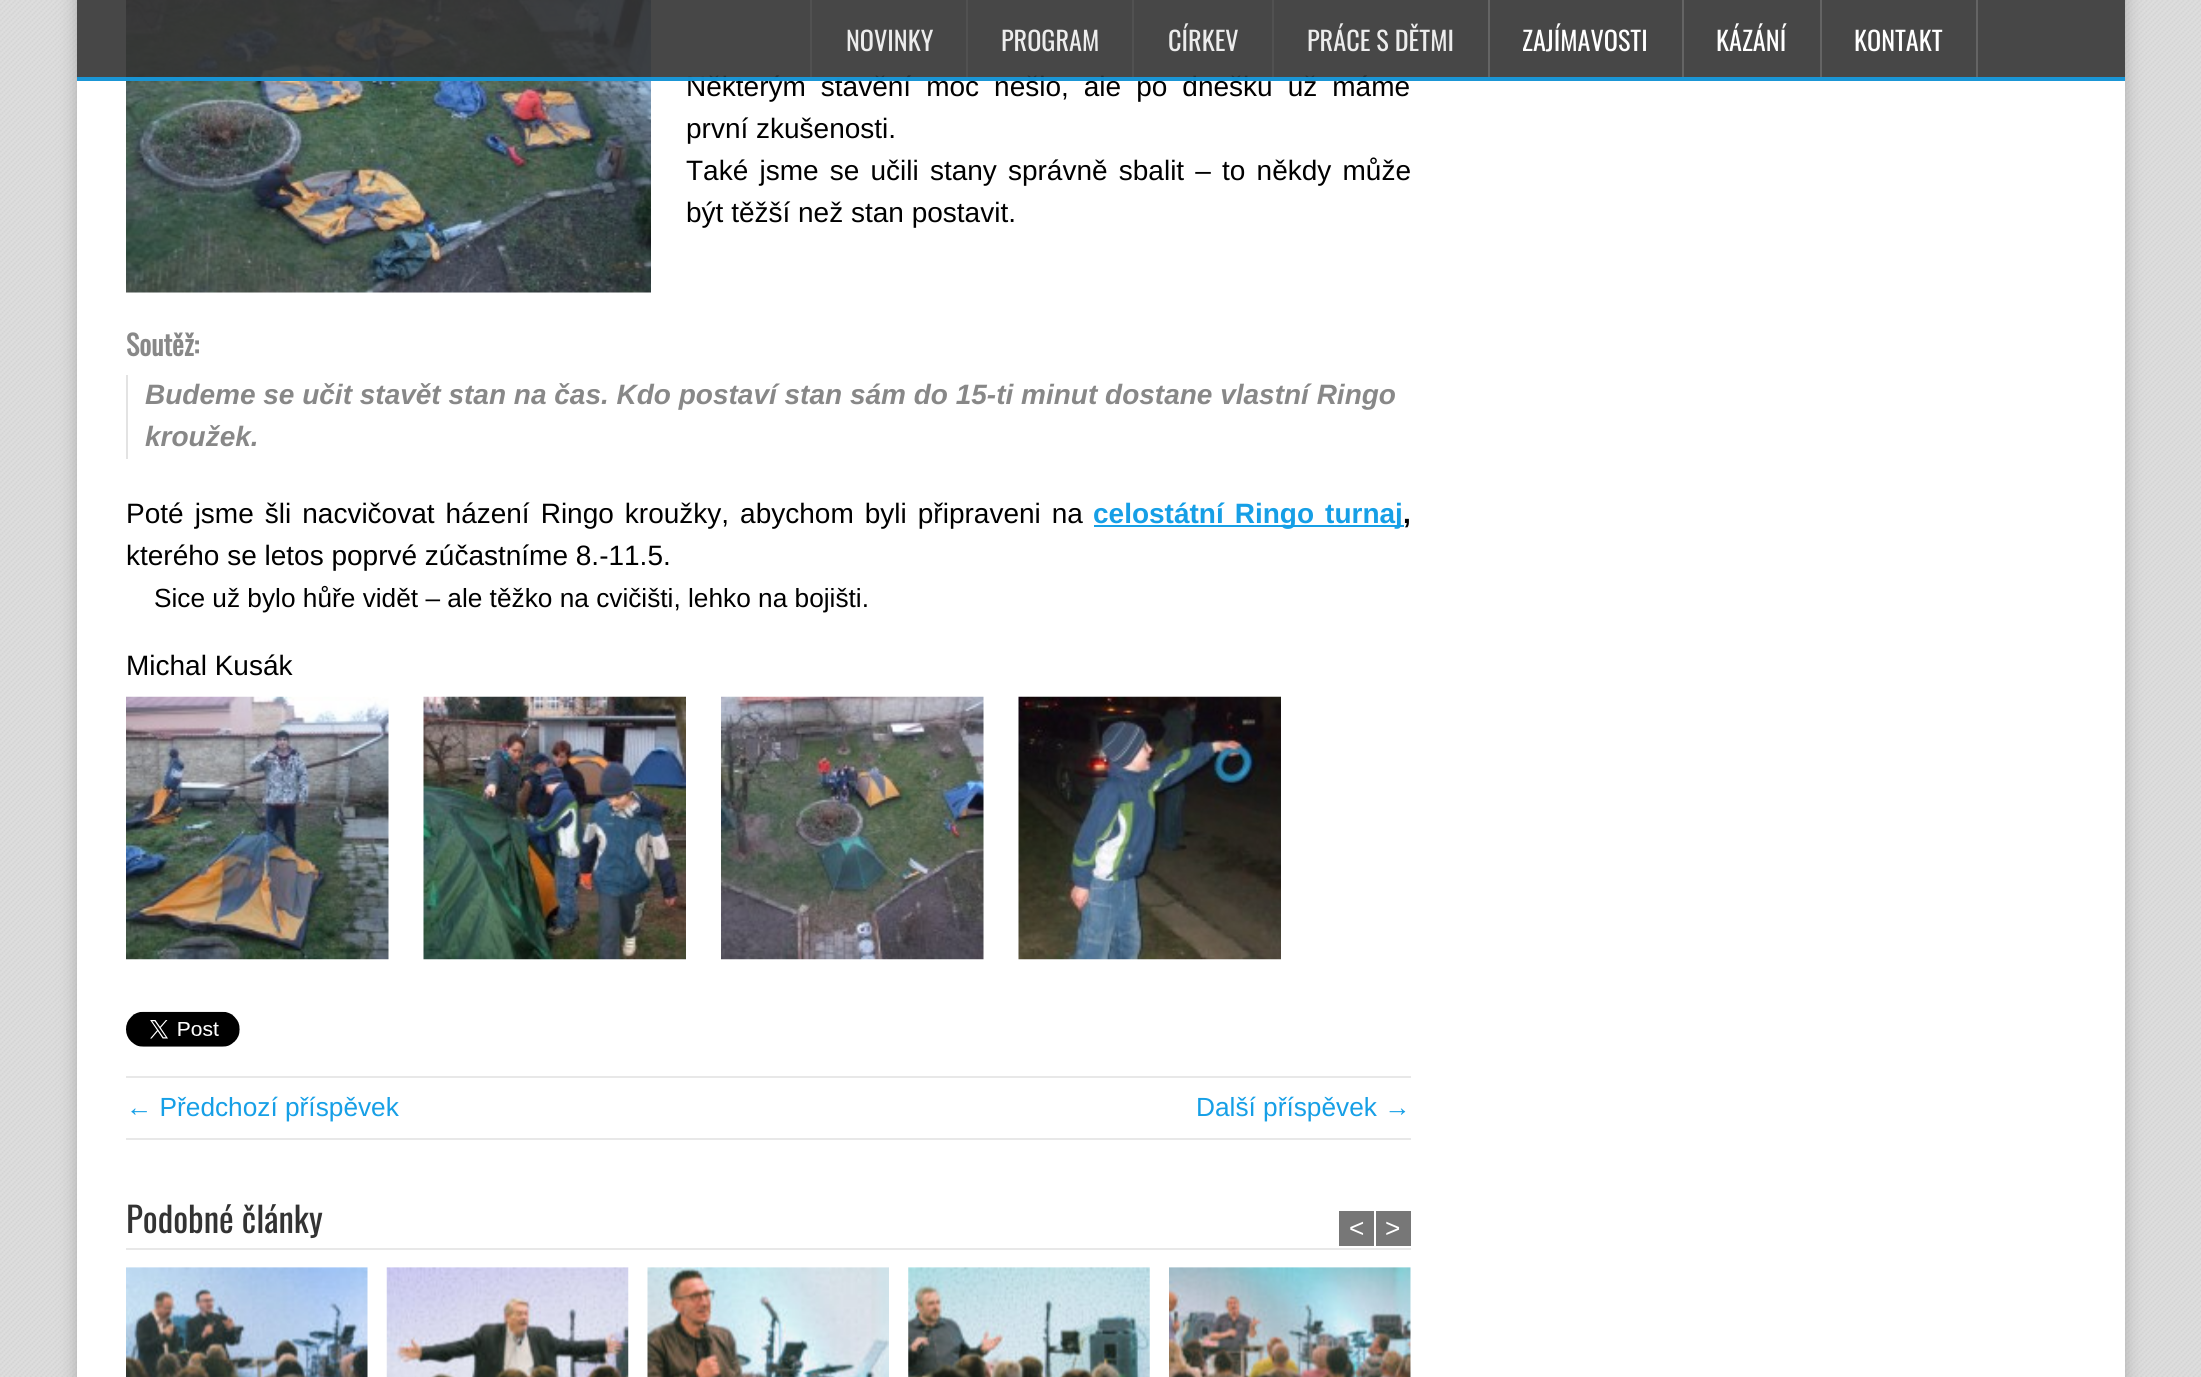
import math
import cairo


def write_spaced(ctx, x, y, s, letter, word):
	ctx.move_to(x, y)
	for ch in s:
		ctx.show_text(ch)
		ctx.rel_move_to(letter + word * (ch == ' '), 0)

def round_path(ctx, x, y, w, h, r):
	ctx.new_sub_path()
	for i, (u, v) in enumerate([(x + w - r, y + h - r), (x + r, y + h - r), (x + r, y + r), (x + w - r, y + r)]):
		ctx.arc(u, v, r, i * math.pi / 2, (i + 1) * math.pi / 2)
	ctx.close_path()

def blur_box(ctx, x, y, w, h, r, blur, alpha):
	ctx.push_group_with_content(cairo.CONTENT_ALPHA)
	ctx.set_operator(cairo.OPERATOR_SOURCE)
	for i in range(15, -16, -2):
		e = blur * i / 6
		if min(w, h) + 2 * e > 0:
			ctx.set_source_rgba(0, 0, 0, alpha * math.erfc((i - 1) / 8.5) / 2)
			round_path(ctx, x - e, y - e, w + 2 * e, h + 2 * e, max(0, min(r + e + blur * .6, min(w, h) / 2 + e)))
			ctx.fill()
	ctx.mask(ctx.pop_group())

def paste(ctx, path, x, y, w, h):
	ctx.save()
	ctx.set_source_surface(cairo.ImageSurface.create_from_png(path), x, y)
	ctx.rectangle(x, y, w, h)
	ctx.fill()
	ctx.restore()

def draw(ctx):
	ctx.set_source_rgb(0.871, 0.871, 0.871)
	ctx.paint()
	paste(ctx, 'media/1.png', 0, 0, 2201, 1377)
	ctx.set_source_rgb(0.667, 0.667, 0.667)
	blur_box(ctx, 77, -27, 2048, 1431, 0, 9, 1)
	ctx.set_source_rgb(1, 1, 1)
	ctx.rectangle(77, 0, 2048, 1377)
	ctx.fill()
	paste(ctx, 'media/2.png', 126, 0, 525, 293)
	ctx.select_font_face('Liberation Sans')
	ctx.set_font_size(28)
	ctx.set_source_rgb(0, 0, 0)
	write_spaced(ctx, 686, 96, 'Některým stavění moc nešlo, ale po dnešku už máme', 0, 7.25)
	ctx.set_source_rgba(0.2, 0.2, 0.2, 0.9)
	ctx.rectangle(77, 0, 2048, 81)
	ctx.fill()
	ctx.set_source_rgba(0.086, 0.624, 0.902, 0.9)
	ctx.rectangle(77, 77, 2048, 4)
	ctx.fill()
	ctx.set_source_rgba(0.325, 0.325, 0.325, 0.9)
	ctx.rectangle(810, 0, 2, 77)
	ctx.fill()
	ctx.rectangle(966, 0, 2, 77)
	ctx.fill()
	ctx.select_font_face('Oswald')
	ctx.set_font_size(26.25)
	ctx.set_source_rgb(0.925, 0.925, 0.925)
	ctx.move_to(846, 51)
	ctx.show_text('NOVINKY')
	ctx.set_source_rgba(0.325, 0.325, 0.325, 0.9)
	ctx.rectangle(1132, 0, 2, 77)
	ctx.fill()
	ctx.set_source_rgb(0.925, 0.925, 0.925)
	ctx.move_to(1001, 51)
	ctx.show_text('PROGRAM')
	ctx.set_source_rgba(0.325, 0.325, 0.325, 0.9)
	ctx.rectangle(1272, 0, 2, 77)
	ctx.fill()
	ctx.set_source_rgb(0.925, 0.925, 0.925)
	ctx.move_to(1168, 51)
	ctx.show_text('CÍRKEV')
	ctx.set_source_rgb(0.392, 0.392, 0.392)
	ctx.rectangle(1488, 0, 2, 77)
	ctx.fill()
	ctx.set_source_rgb(0.925, 0.925, 0.925)
	ctx.move_to(1307, 51)
	ctx.show_text('PRÁCE S DĚTMI')
	ctx.set_source_rgb(0.392, 0.392, 0.392)
	ctx.rectangle(1682, 0, 2, 77)
	ctx.fill()
	ctx.set_source_rgb(1, 1, 1)
	ctx.move_to(1522, 51)
	ctx.show_text('ZAJÍMAVOSTI')
	ctx.set_source_rgb(0.392, 0.392, 0.392)
	ctx.rectangle(1820, 0, 2, 77)
	ctx.fill()
	ctx.set_source_rgb(1, 1, 1)
	ctx.move_to(1716, 51)
	ctx.show_text('KÁZÁNÍ')
	ctx.set_source_rgb(0.392, 0.392, 0.392)
	ctx.rectangle(1976, 0, 2, 77)
	ctx.fill()
	ctx.set_source_rgb(1, 1, 1)
	ctx.move_to(1854, 51)
	ctx.show_text('KONTAKT')
	ctx.select_font_face('Liberation Sans')
	ctx.set_font_size(28)
	ctx.set_source_rgb(0, 0, 0)
	ctx.move_to(686, 138)
	ctx.show_text('první zkušenosti.')
	write_spaced(ctx, 686, 180, 'Také jsme se učili stany správně sbalit – to někdy může', 0, 3.4)
	ctx.move_to(686, 222)
	ctx.show_text('být těžší než stan postavit.')
	ctx.select_font_face('Oswald', cairo.FONT_SLANT_NORMAL, cairo.FONT_WEIGHT_BOLD)
	ctx.set_source_rgb(0.533, 0.533, 0.533)
	ctx.move_to(126, 356)
	ctx.show_text('Soutěž:')
	ctx.set_source_rgb(0.89, 0.89, 0.89)
	ctx.rectangle(126, 375, 2, 84)
	ctx.fill()
	ctx.select_font_face('Liberation Sans', cairo.FONT_SLANT_ITALIC, cairo.FONT_WEIGHT_BOLD)
	ctx.set_source_rgb(0.533, 0.533, 0.533)
	ctx.move_to(145, 404)
	ctx.show_text('Budeme se učit stavět stan na čas. Kdo postaví stan sám do 15-ti minut dostane vlastní Ringo')
	ctx.move_to(145, 446)
	ctx.show_text('kroužek.')
	ctx.select_font_face('Liberation Sans')
	ctx.set_source_rgb(0, 0, 0)
	write_spaced(ctx, 126, 523, 'Poté jsme šli nacvičovat házení Ringo kroužky, abychom byli připraveni na', 0, 3.25)
	ctx.set_source_rgb(0.086, 0.624, 0.902)
	ctx.rectangle(1094, 525, 310, 2)
	ctx.fill()
	ctx.select_font_face('Liberation Sans', cairo.FONT_SLANT_NORMAL, cairo.FONT_WEIGHT_BOLD)
	write_spaced(ctx, 1093, 523, 'celostátní Ringo turnaj', 0, 3.25)
	ctx.set_source_rgb(0, 0, 0)
	ctx.move_to(1403, 523)
	ctx.show_text(',')
	ctx.select_font_face('Liberation Sans')
	ctx.move_to(126, 565)
	ctx.show_text('kterého se letos poprvé zúčastníme 8.-11.5.')
	ctx.set_font_size(26.25)
	ctx.move_to(154, 607)
	ctx.show_text('Sice už bylo hůře vidět – ale těžko na cvičišti, lehko na bojišti.')
	ctx.set_font_size(28)
	ctx.move_to(126, 675)
	ctx.show_text('Michal Kusák')
	paste(ctx, 'media/3.png', 126, 696, 263, 264)
	paste(ctx, 'media/4.png', 423, 696, 263, 264)
	paste(ctx, 'media/5.png', 721, 696, 263, 264)
	paste(ctx, 'media/6.png', 1018, 696, 263, 264)
	paste(ctx, 'media/7.png', 126, 1011, 114, 36)
	ctx.set_source_rgb(0.91, 0.91, 0.91)
	ctx.rectangle(126, 1076, 1285, 2)
	ctx.fill()
	ctx.rectangle(126, 1138, 1285, 2)
	ctx.fill()
	ctx.set_font_size(26.25)
	ctx.set_source_rgb(0.086, 0.624, 0.902)
	ctx.move_to(126, 1116)
	ctx.show_text('← Předchozí příspěvek')
	ctx.move_to(1196, 1116)
	ctx.show_text('Další příspěvek →')
	ctx.set_source_rgb(0.91, 0.91, 0.91)
	ctx.rectangle(126, 1248, 1285, 2)
	ctx.fill()
	ctx.select_font_face('Oswald')
	ctx.set_font_size(35)
	ctx.set_source_rgb(0.2, 0.2, 0.2)
	ctx.move_to(126, 1233)
	ctx.show_text('Podobné články')
	ctx.set_source_rgb(0.467, 0.467, 0.467)
	ctx.rectangle(1339, 1211, 35, 35)
	ctx.fill()
	ctx.select_font_face('Liberation Sans')
	ctx.set_font_size(26.25)
	ctx.set_source_rgb(1, 1, 1)
	ctx.move_to(1349, 1237)
	ctx.show_text('<')
	ctx.set_source_rgb(0.467, 0.467, 0.467)
	ctx.rectangle(1376, 1211, 35, 35)
	ctx.fill()
	ctx.set_source_rgb(1, 1, 1)
	ctx.move_to(1385, 1237)
	ctx.show_text('>')
	paste(ctx, 'media/8.png', 126, 1267, 242, 110)
	paste(ctx, 'media/9.png', 386, 1267, 243, 110)
	paste(ctx, 'media/10.png', 647, 1267, 242, 110)
	paste(ctx, 'media/11.png', 908, 1267, 242, 110)
	paste(ctx, 'media/12.png', 1169, 1267, 242, 110)


surface = cairo.ImageSurface(cairo.FORMAT_RGB24, 2201, 1377)
ctx = cairo.Context(surface)
options = cairo.FontOptions()
options.set_hint_metrics(cairo.HINT_METRICS_OFF)
options.set_hint_style(cairo.HINT_STYLE_NONE)
ctx.set_font_options(options)
ctx.set_miter_limit(4)
draw(ctx)
surface.write_to_png('image.png')
